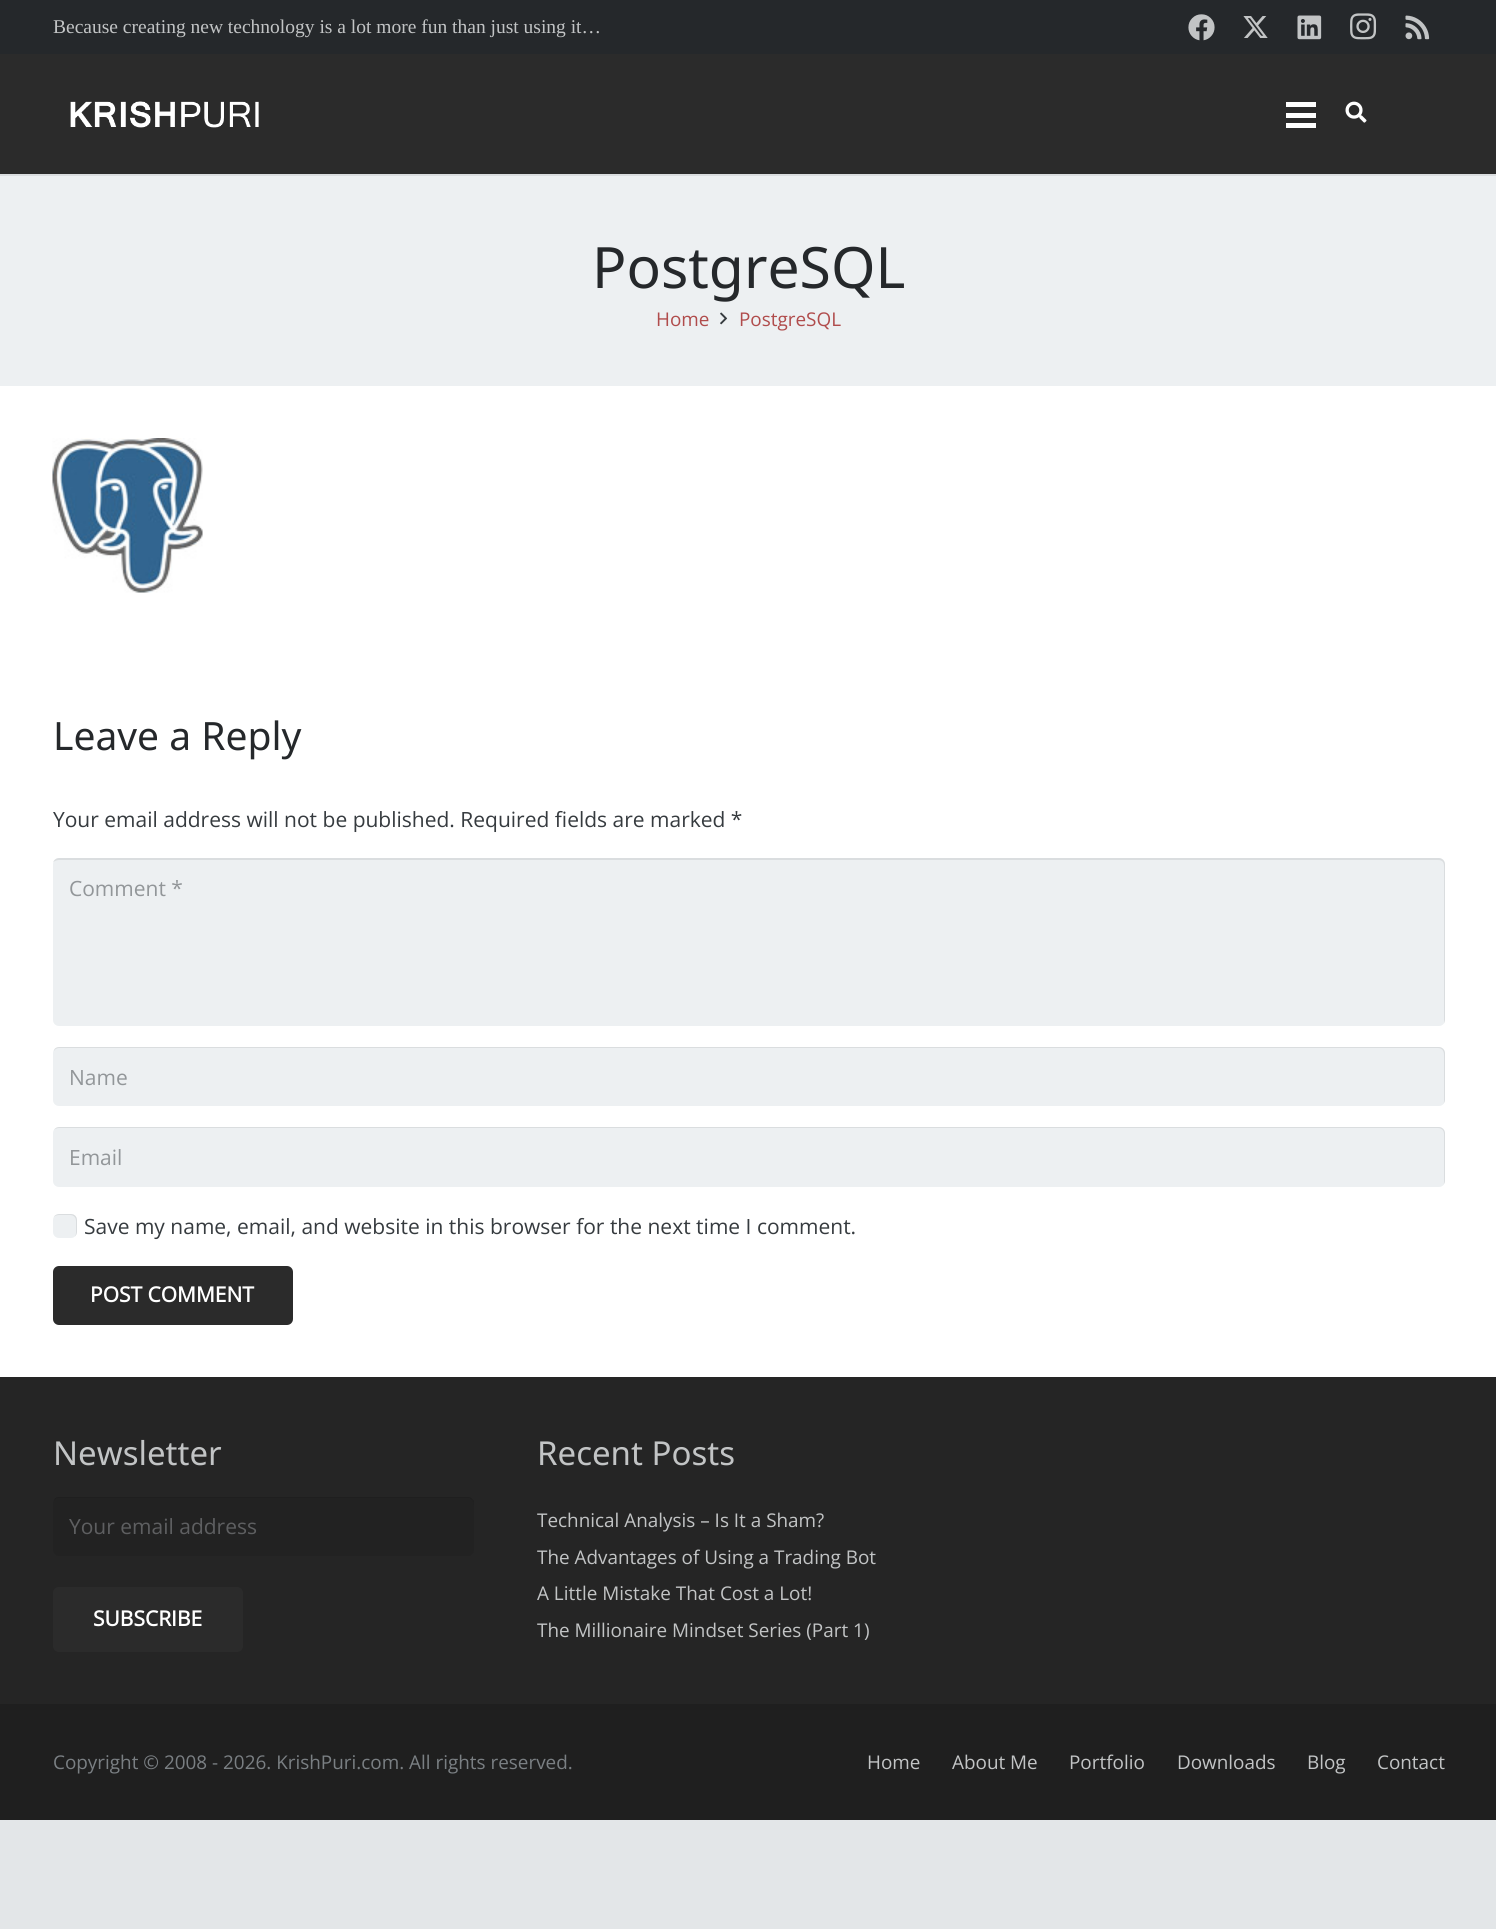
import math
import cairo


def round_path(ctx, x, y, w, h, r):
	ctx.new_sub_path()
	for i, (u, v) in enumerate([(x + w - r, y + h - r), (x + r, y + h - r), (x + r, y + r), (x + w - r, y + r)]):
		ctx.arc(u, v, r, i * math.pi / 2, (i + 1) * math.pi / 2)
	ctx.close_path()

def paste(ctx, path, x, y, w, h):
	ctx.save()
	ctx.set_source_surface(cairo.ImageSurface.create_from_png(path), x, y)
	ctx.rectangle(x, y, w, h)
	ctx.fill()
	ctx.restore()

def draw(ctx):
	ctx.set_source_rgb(0.89, 0.902, 0.91)
	ctx.paint()
	ctx.set_source_rgb(1, 1, 1)
	ctx.rectangle(0, 386, 1496, 991)
	ctx.fill()
	ctx.set_source_rgb(0.145, 0.157, 0.169)
	ctx.rectangle(0, 0, 1496, 54)
	ctx.fill()
	ctx.select_font_face('Liberation Serif')
	ctx.set_font_size(19.5)
	ctx.set_source_rgb(0.761, 0.769, 0.773)
	ctx.move_to(53, 33)
	ctx.show_text('Because creating new technology is a lot more fun than just using it…')
	paste(ctx, 'media/1.png', 1188, 14, 27, 27)
	paste(ctx, 'media/2.png', 1243, 16, 25, 22)
	paste(ctx, 'media/3.png', 1297, 15, 25, 25)
	paste(ctx, 'media/4.png', 1350, 13, 27, 27)
	paste(ctx, 'media/5.png', 1405, 15, 25, 25)
	ctx.set_source_rgb(0.855, 0.867, 0.875)
	ctx.rectangle(0, 174, 1496, 2)
	ctx.fill()
	ctx.set_source_rgb(0.169, 0.169, 0.169)
	ctx.rectangle(0, 54, 1496, 120)
	ctx.fill()
	paste(ctx, 'media/6.png', 70, 101, 189, 27)
	ctx.set_source_rgb(1, 1, 1)
	ctx.rectangle(1286, 113, 30, 5)
	ctx.rectangle(1286, 102, 30, 5)
	ctx.rectangle(1286, 123, 30, 5)
	ctx.fill()
	paste(ctx, 'media/7.png', 1345, 101, 22, 22)
	ctx.set_source_rgb(0.929, 0.941, 0.949)
	ctx.rectangle(0, 176, 1496, 210)
	ctx.fill()
	ctx.select_font_face('Noto Sans')
	ctx.set_font_size(57)
	ctx.set_source_rgb(0.145, 0.157, 0.169)
	ctx.move_to(592, 288)
	ctx.show_text('PostgreSQL')
	ctx.select_font_face('Open Sans')
	ctx.set_font_size(18.9)
	ctx.set_source_rgb(0.69, 0.298, 0.298)
	ctx.move_to(656, 326)
	ctx.show_text('Home')
	paste(ctx, 'media/8.png', 720, 312, 8, 13)
	ctx.move_to(739, 326)
	ctx.show_text('PostgreSQL')
	paste(ctx, 'media/9.png', 52, 438, 151, 155)
	ctx.select_font_face('Noto Sans')
	ctx.set_font_size(39)
	ctx.set_source_rgb(0.145, 0.157, 0.169)
	ctx.move_to(53, 750)
	ctx.show_text('Leave a Reply')
	ctx.select_font_face('Open Sans')
	ctx.set_font_size(21)
	ctx.set_source_rgb(0.212, 0.231, 0.247)
	ctx.move_to(53, 827)
	ctx.show_text('Your email address will not be published. Required fields are marked *')
	ctx.set_source_rgb(0.929, 0.941, 0.949)
	round_path(ctx, 53, 858, 1392, 168, 6)
	ctx.fill()
	ctx.set_source_rgba(0, 0, 0, 0.08)
	ctx.new_path()
	ctx.move_to(59, 860)
	ctx.line_to(1438, 860)
	ctx.curve_to(1442, 860, 1444, 862, 1444, 866)
	ctx.line_to(1444, 1021)
	ctx.line_to(1444, 1024)
	ctx.curve_to(1444, 1023, 1445, 1021, 1445, 1020)
	ctx.line_to(1445, 864)
	ctx.curve_to(1445, 861, 1442, 858, 1439, 858)
	ctx.line_to(59, 858)
	ctx.curve_to(56, 858, 54, 860, 53, 862)
	ctx.curve_to(55, 861, 57, 860, 59, 860)
	ctx.close_path()
	ctx.fill()
	ctx.set_source_rgb(0.573, 0.588, 0.6)
	ctx.move_to(69, 896)
	ctx.show_text('Comment *')
	ctx.set_source_rgb(0.929, 0.941, 0.949)
	round_path(ctx, 53, 1047, 1392, 59, 6)
	ctx.fill()
	ctx.set_source_rgba(0, 0, 0, 0.08)
	ctx.new_path()
	ctx.move_to(59, 1048)
	ctx.line_to(1438, 1048)
	ctx.curve_to(1442, 1048, 1444, 1051, 1444, 1055)
	ctx.line_to(1444, 1101)
	ctx.curve_to(1444, 1102, 1444, 1103, 1443, 1104)
	ctx.curve_to(1444, 1103, 1445, 1102, 1445, 1100)
	ctx.line_to(1445, 1053)
	ctx.curve_to(1445, 1050, 1442, 1047, 1439, 1047)
	ctx.line_to(59, 1047)
	ctx.curve_to(57, 1047, 54, 1048, 54, 1051)
	ctx.curve_to(55, 1049, 57, 1048, 59, 1048)
	ctx.close_path()
	ctx.fill()
	ctx.set_source_rgb(0.573, 0.588, 0.6)
	ctx.move_to(69, 1085)
	ctx.show_text('Name')
	ctx.set_source_rgb(0.929, 0.941, 0.949)
	round_path(ctx, 53, 1127, 1392, 60, 6)
	ctx.fill()
	ctx.set_source_rgba(0, 0, 0, 0.08)
	ctx.new_path()
	ctx.move_to(59, 1128)
	ctx.line_to(1438, 1128)
	ctx.curve_to(1442, 1128, 1444, 1131, 1444, 1134)
	ctx.line_to(1444, 1182)
	ctx.curve_to(1444, 1183, 1444, 1184, 1443, 1185)
	ctx.curve_to(1444, 1184, 1445, 1183, 1445, 1181)
	ctx.line_to(1445, 1133)
	ctx.curve_to(1445, 1130, 1442, 1127, 1439, 1127)
	ctx.line_to(59, 1127)
	ctx.curve_to(57, 1127, 55, 1128, 54, 1130)
	ctx.curve_to(55, 1129, 57, 1128, 59, 1128)
	ctx.close_path()
	ctx.fill()
	ctx.set_source_rgb(0.573, 0.588, 0.6)
	ctx.move_to(69, 1165)
	ctx.show_text('Email')
	ctx.set_source_rgb(0.929, 0.941, 0.949)
	round_path(ctx, 53, 1214, 24, 24, 6)
	ctx.fill()
	ctx.set_source_rgba(0, 0, 0, 0.08)
	ctx.new_path()
	ctx.move_to(59, 1215)
	ctx.line_to(70, 1215)
	ctx.curve_to(74, 1215, 76, 1218, 76, 1221)
	ctx.line_to(76, 1233)
	ctx.curve_to(76, 1234, 75.5, 1235.5, 75, 1236.5)
	ctx.curve_to(76, 1235.5, 77, 1234, 77, 1232)
	ctx.line_to(77, 1220)
	ctx.curve_to(77, 1216.5, 74.5, 1214, 71, 1214)
	ctx.line_to(59, 1214)
	ctx.curve_to(56.5, 1214, 54.5, 1215.5, 53.5, 1217)
	ctx.curve_to(55, 1216, 57, 1215, 59, 1215)
	ctx.close_path()
	ctx.fill()
	ctx.set_source_rgb(0.212, 0.231, 0.247)
	ctx.move_to(84, 1234)
	ctx.show_text('Save my name, email, and website in this browser for the next time I comment.')
	ctx.set_source_rgb(0.169, 0.169, 0.169)
	round_path(ctx, 53, 1266, 240, 59, 6)
	ctx.fill()
	ctx.select_font_face('Open Sans', cairo.FONT_SLANT_NORMAL, cairo.FONT_WEIGHT_BOLD)
	ctx.set_source_rgb(1, 1, 1)
	ctx.move_to(90, 1302)
	ctx.show_text('POST COMMENT')
	ctx.set_source_rgb(0.145, 0.145, 0.145)
	ctx.rectangle(0, 1377, 1496, 327)
	ctx.fill()
	ctx.select_font_face('Noto Sans')
	ctx.set_font_size(33)
	ctx.set_source_rgb(0.761, 0.769, 0.773)
	ctx.move_to(53, 1465)
	ctx.show_text('Newsletter')
	ctx.set_source_rgb(0.133, 0.133, 0.133)
	round_path(ctx, 53, 1497, 421, 59, 6)
	ctx.fill()
	ctx.set_source_rgb(0.122, 0.122, 0.122)
	ctx.new_path()
	ctx.move_to(59, 1498)
	ctx.line_to(468, 1498)
	ctx.curve_to(471, 1498, 474, 1501, 474, 1505)
	ctx.line_to(474, 1503)
	ctx.curve_to(474, 1500, 471, 1497, 468, 1497)
	ctx.line_to(59, 1497)
	ctx.curve_to(57, 1497, 54, 1498, 54, 1501)
	ctx.curve_to(55, 1499, 57, 1498, 59, 1498)
	ctx.close_path()
	ctx.fill()
	ctx.select_font_face('Open Sans')
	ctx.set_font_size(21)
	ctx.set_source_rgb(0.369, 0.373, 0.38)
	ctx.move_to(69, 1534)
	ctx.show_text('Your email address')
	ctx.set_source_rgb(0.169, 0.169, 0.169)
	round_path(ctx, 53, 1587, 190, 65, 6)
	ctx.fill()
	ctx.select_font_face('Open Sans', cairo.FONT_SLANT_NORMAL, cairo.FONT_WEIGHT_BOLD)
	ctx.set_source_rgb(1, 1, 1)
	ctx.move_to(93, 1626)
	ctx.show_text('SUBSCRIBE')
	ctx.select_font_face('Noto Sans')
	ctx.set_font_size(33)
	ctx.set_source_rgb(0.761, 0.769, 0.773)
	ctx.move_to(537, 1465)
	ctx.show_text('Recent Posts')
	ctx.select_font_face('Open Sans')
	ctx.set_font_size(18.9)
	for x, y, s in [
		(537, 1527, 'Technical Analysis – Is It a Sham?'),
		(537, 1564, 'The Advantages of Using a Trading Bot'),
		(537, 1600, 'A Little Mistake That Cost a Lot!'),
		(537, 1637, 'The Millionaire Mindset Series (Part 1)'),
	]:
		ctx.move_to(x, y)
		ctx.show_text(s)
	ctx.set_source_rgb(0.122, 0.122, 0.122)
	ctx.rectangle(0, 1704, 1496, 116)
	ctx.fill()
	ctx.set_source_rgb(0.478, 0.498, 0.514)
	ctx.move_to(53, 1769)
	ctx.show_text('Copyright © 2008 - 2026. KrishPuri.com. All rights reserved.')
	ctx.set_source_rgb(0.761, 0.769, 0.773)
	for x, y, s in [
		(867, 1769, 'Home'),
		(952, 1769, 'About Me'),
		(1069, 1769, 'Portfolio'),
		(1177, 1769, 'Downloads'),
		(1307, 1769, 'Blog'),
		(1377, 1769, 'Contact'),
	]:
		ctx.move_to(x, y)
		ctx.show_text(s)


surface = cairo.ImageSurface(cairo.FORMAT_RGB24, 1496, 1929)
ctx = cairo.Context(surface)
options = cairo.FontOptions()
options.set_hint_metrics(cairo.HINT_METRICS_OFF)
options.set_hint_style(cairo.HINT_STYLE_NONE)
ctx.set_font_options(options)
ctx.set_miter_limit(4)
draw(ctx)
surface.write_to_png('image.png')
